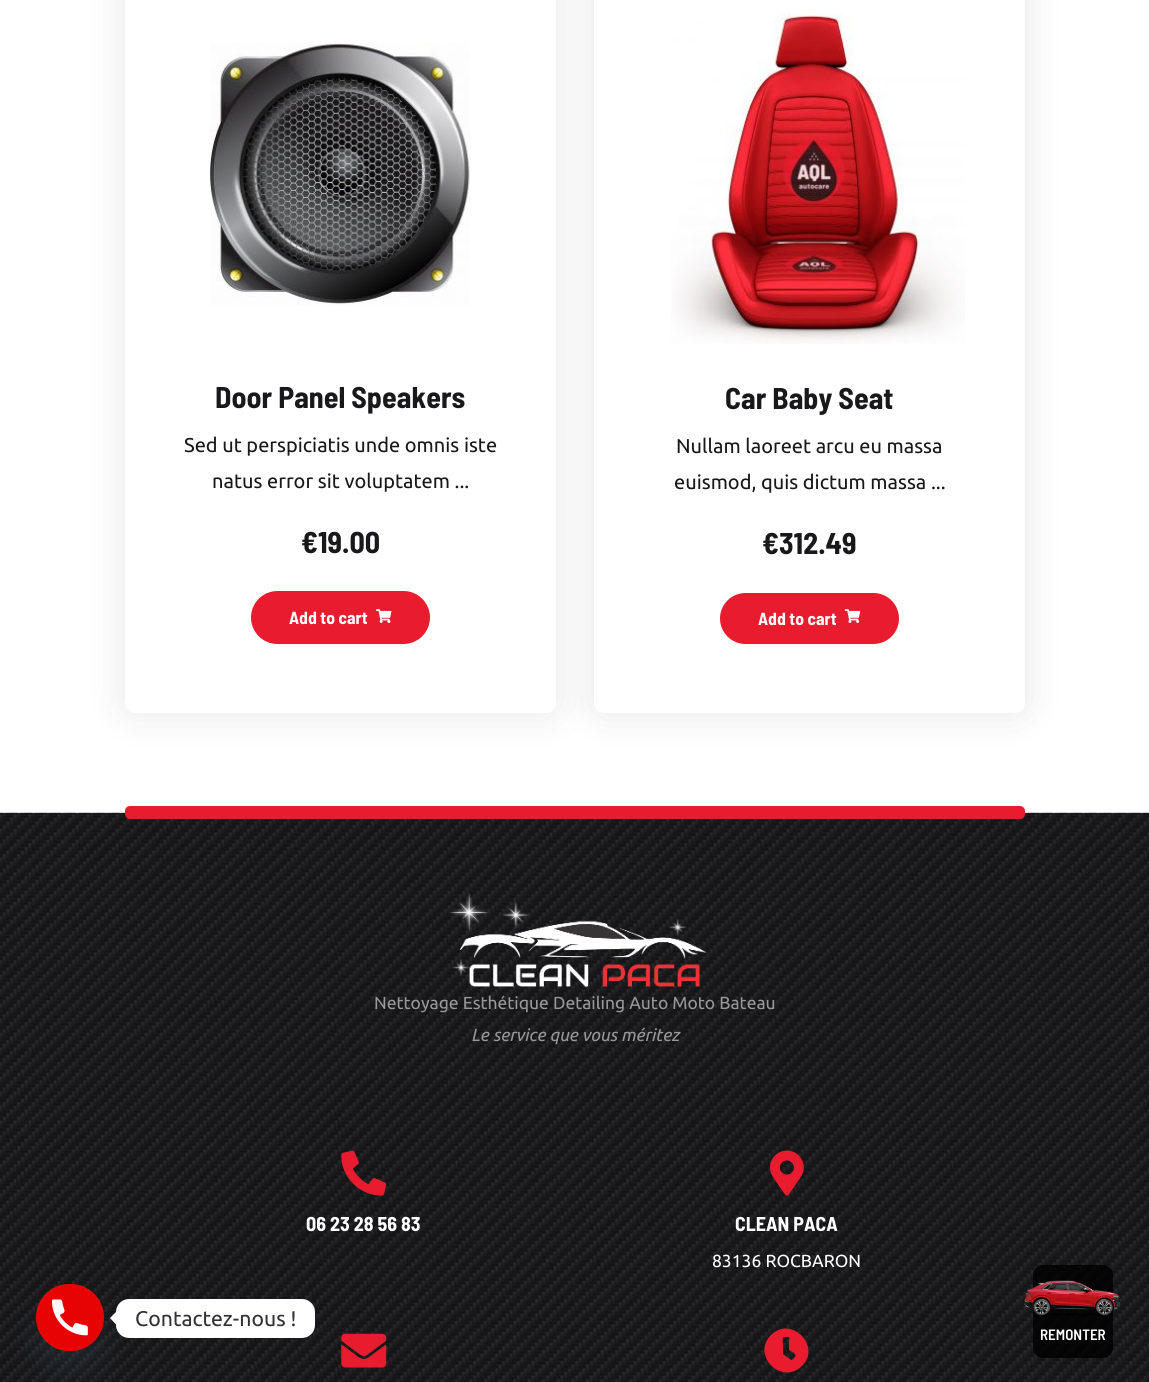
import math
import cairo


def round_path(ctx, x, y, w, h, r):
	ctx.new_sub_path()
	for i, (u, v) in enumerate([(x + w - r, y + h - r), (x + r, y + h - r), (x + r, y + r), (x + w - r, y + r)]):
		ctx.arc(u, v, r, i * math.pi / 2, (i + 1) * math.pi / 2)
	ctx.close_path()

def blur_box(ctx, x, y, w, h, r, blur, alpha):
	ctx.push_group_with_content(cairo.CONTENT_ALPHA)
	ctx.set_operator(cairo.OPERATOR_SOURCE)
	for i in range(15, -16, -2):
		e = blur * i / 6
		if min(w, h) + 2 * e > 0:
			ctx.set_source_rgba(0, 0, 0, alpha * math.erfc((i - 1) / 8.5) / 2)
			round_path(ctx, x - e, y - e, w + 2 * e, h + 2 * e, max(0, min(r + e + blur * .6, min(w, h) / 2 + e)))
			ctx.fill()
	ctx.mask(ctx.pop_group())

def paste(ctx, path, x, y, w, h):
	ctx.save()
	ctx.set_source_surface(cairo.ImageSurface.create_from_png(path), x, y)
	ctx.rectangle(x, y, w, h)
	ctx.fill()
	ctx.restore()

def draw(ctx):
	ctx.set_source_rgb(1, 1, 1)
	ctx.paint()
	ctx.set_source_rgb(0, 0, 0)
	blur_box(ctx, 125, -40, 431, 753, 10, 19, 0.1)
	ctx.set_source_rgb(1, 1, 1)
	round_path(ctx, 125, -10, 431, 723, 10)
	ctx.fill()
	paste(ctx, 'media/1.png', 210, 43, 260, 263)
	ctx.select_font_face('Barlow Semi Condensed', cairo.FONT_SLANT_NORMAL, cairo.FONT_WEIGHT_BOLD)
	ctx.set_font_size(30)
	ctx.set_source_rgb(0.098, 0.098, 0.106)
	ctx.move_to(215, 408)
	ctx.show_text('Door Panel Speakers')
	ctx.select_font_face('Ubuntu')
	ctx.set_font_size(20)
	ctx.move_to(184, 452)
	ctx.show_text('Sed ut perspiciatis unde omnis iste')
	ctx.move_to(212, 488)
	ctx.show_text('natus error sit voluptatem ...')
	ctx.select_font_face('Barlow Semi Condensed', cairo.FONT_SLANT_NORMAL, cairo.FONT_WEIGHT_BOLD)
	ctx.set_font_size(30)
	ctx.move_to(301, 553)
	ctx.show_text('€19.00')
	ctx.set_source_rgb(0.91, 0.11, 0.18)
	round_path(ctx, 251, 591, 179, 53, 26.5)
	ctx.fill()
	ctx.set_font_size(17.5)
	ctx.set_source_rgb(1, 1, 1)
	ctx.move_to(289, 624)
	ctx.show_text('Add to cart')
	paste(ctx, 'media/2.png', 376, 609, 16, 14)
	ctx.set_source_rgb(0, 0, 0)
	blur_box(ctx, 594, -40, 431, 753, 10, 19, 0.1)
	ctx.set_source_rgb(1, 1, 1)
	round_path(ctx, 594, -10, 431, 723, 10)
	ctx.fill()
	paste(ctx, 'media/3.png', 671, 13, 294, 331)
	ctx.set_font_size(30)
	ctx.set_source_rgb(0.098, 0.098, 0.106)
	ctx.move_to(725, 409)
	ctx.show_text('Car Baby Seat')
	ctx.select_font_face('Ubuntu')
	ctx.set_font_size(20)
	ctx.move_to(676, 453)
	ctx.show_text('Nullam laoreet arcu eu massa')
	ctx.move_to(674, 489)
	ctx.show_text('euismod, quis dictum massa ...')
	ctx.select_font_face('Barlow Semi Condensed', cairo.FONT_SLANT_NORMAL, cairo.FONT_WEIGHT_BOLD)
	ctx.set_font_size(30)
	ctx.move_to(762, 554)
	ctx.show_text('€312.49')
	ctx.set_source_rgb(0.91, 0.11, 0.18)
	round_path(ctx, 720, 593, 179, 51, 25.5)
	ctx.fill()
	ctx.set_font_size(17.5)
	ctx.set_source_rgb(1, 1, 1)
	ctx.move_to(758, 625)
	ctx.show_text('Add to cart')
	paste(ctx, 'media/4.png', 844, 609, 17, 14)
	ctx.set_source_rgb(0.098, 0.098, 0.106)
	ctx.rectangle(0, 813, 1149, 569)
	ctx.fill()
	paste(ctx, 'media/5.png', 0, 812, 1149, 570)
	ctx.set_source_rgb(0.91, 0.11, 0.18)
	round_path(ctx, 125, 806, 900, 13, 5)
	ctx.fill()
	paste(ctx, 'media/6.png', 449, 893, 258, 94)
	ctx.select_font_face('Ubuntu')
	ctx.set_source_rgb(0.596, 0.596, 0.6)
	ctx.move_to(374, 1009)
	ctx.show_text('Nettoyage Esthétique Detailing Auto Moto Bateau')
	ctx.select_font_face('Ubuntu', cairo.FONT_SLANT_ITALIC)
	ctx.move_to(471, 1041)
	ctx.show_text('Le service que vous méritez')
	paste(ctx, 'media/7.png', 341, 1150, 46, 46)
	ctx.select_font_face('Barlow Semi Condensed', cairo.FONT_SLANT_NORMAL, cairo.FONT_WEIGHT_BOLD)
	ctx.set_font_size(20)
	ctx.set_source_rgb(1, 1, 1)
	ctx.move_to(306, 1231)
	ctx.show_text('06 23 28 56 83')
	paste(ctx, 'media/8.png', 770, 1150, 34, 46)
	ctx.move_to(735, 1231)
	ctx.show_text('CLEAN PACA')
	ctx.select_font_face('Ubuntu')
	ctx.set_font_size(17.5)
	ctx.move_to(712, 1267)
	ctx.show_text('83136 ROCBARON')
	paste(ctx, 'media/9.png', 341, 1333, 46, 35)
	ctx.set_source_rgb(0.91, 0.11, 0.18)
	ctx.new_path()
	ctx.move_to(771, 1335)
	ctx.curve_to(791, 1315, 822, 1346, 802, 1366)
	ctx.curve_to(781, 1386, 751, 1355, 771, 1335)
	ctx.close_path()
	ctx.move_to(791, 1360)
	ctx.curve_to(792, 1360, 793, 1359, 794, 1358)
	ctx.curve_to(796, 1355, 796, 1356, 794, 1353)
	ctx.line_to(789, 1350)
	ctx.line_to(789, 1342)
	ctx.curve_to(789, 1339, 791, 1337, 787, 1337)
	ctx.curve_to(781, 1337, 783, 1338, 783, 1346)
	ctx.line_to(783, 1354)
	ctx.close_path()
	ctx.fill()
	ctx.set_source_rgb(0.286, 0.408, 0.494)
	blur_box(ctx, 36, 1304, 68, 67, 33.5, 15, 0.16)
	ctx.set_source_rgb(0.906, 0.012, 0.012)
	round_path(ctx, 36, 1284, 68, 67, 33.5)
	ctx.fill()
	paste(ctx, 'media/10.png', 36, 1284, 68, 67)
	ctx.set_source_rgb(1, 1, 1)
	round_path(ctx, 116, 1299, 199, 39, 13)
	ctx.fill()
	ctx.new_path()
	ctx.move_to(116, 1312)
	ctx.line_to(116, 1324.5)
	ctx.line_to(110, 1318)
	ctx.close_path()
	ctx.fill()
	ctx.set_font_size(21.25)
	ctx.set_source_rgb(0.2, 0.2, 0.2)
	ctx.move_to(135, 1326)
	ctx.show_text('Contactez-nous !')
	ctx.set_source_rgba(0, 0, 0, 0.8)
	round_path(ctx, 1033, 1265, 80, 93, 10)
	ctx.fill()
	paste(ctx, 'media/11.png', 1024, 1280, 97, 36)
	ctx.select_font_face('Barlow Semi Condensed SemiBold')
	ctx.set_font_size(15)
	ctx.set_source_rgb(1, 1, 1)
	ctx.move_to(1040, 1340)
	ctx.show_text('REMONTER')


surface = cairo.ImageSurface(cairo.FORMAT_RGB24, 1149, 1382)
ctx = cairo.Context(surface)
options = cairo.FontOptions()
options.set_hint_metrics(cairo.HINT_METRICS_OFF)
options.set_hint_style(cairo.HINT_STYLE_NONE)
ctx.set_font_options(options)
ctx.set_miter_limit(4)
draw(ctx)
surface.write_to_png('image.png')
